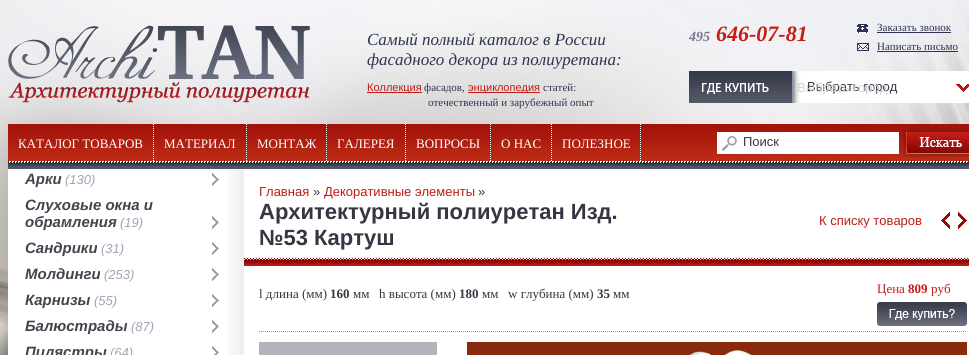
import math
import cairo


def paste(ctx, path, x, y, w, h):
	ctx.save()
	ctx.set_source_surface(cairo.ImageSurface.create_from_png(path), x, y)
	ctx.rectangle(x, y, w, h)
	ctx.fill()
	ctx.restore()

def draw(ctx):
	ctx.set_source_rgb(1, 1, 1)
	ctx.paint()
	paste(ctx, 'media/1.png', 0, 0, 969, 355)
	paste(ctx, 'media/2.png', 8, 25, 302, 78)
	ctx.select_font_face('Liberation Serif', cairo.FONT_SLANT_ITALIC)
	ctx.set_font_size(17)
	ctx.set_source_rgb(0.173, 0.204, 0.318)
	ctx.move_to(367, 45)
	ctx.show_text('Самый полный каталог в России')
	ctx.move_to(367, 65)
	ctx.show_text('фасадного декора из полиуретана:')
	ctx.set_source_rgb(0.741, 0.114, 0.09)
	ctx.rectangle(367, 92, 55, 1)
	ctx.fill()
	ctx.select_font_face('Liberation Sans')
	ctx.set_font_size(11)
	ctx.move_to(367, 91)
	ctx.show_text('Коллекция')
	ctx.select_font_face('Liberation Serif')
	ctx.set_source_rgb(0.173, 0.204, 0.318)
	ctx.move_to(424, 91)
	ctx.show_text('фасадов,')
	ctx.set_source_rgb(0.741, 0.114, 0.09)
	ctx.rectangle(468, 92, 72, 1)
	ctx.fill()
	ctx.select_font_face('Liberation Sans')
	ctx.move_to(468, 91)
	ctx.show_text('энциклопедия')
	ctx.select_font_face('Liberation Serif')
	ctx.set_source_rgb(0.173, 0.204, 0.318)
	ctx.move_to(543, 91)
	ctx.show_text('статей:')
	ctx.move_to(428, 106)
	ctx.show_text('отечественный и зарубежный опыт')
	ctx.select_font_face('Liberation Serif', cairo.FONT_SLANT_ITALIC, cairo.FONT_WEIGHT_BOLD)
	ctx.set_font_size(14)
	ctx.set_source_rgb(0.455, 0.467, 0.533)
	ctx.move_to(689, 41)
	ctx.show_text('495')
	ctx.set_font_size(22)
	ctx.set_source_rgb(0.773, 0.106, 0.075)
	ctx.move_to(716, 41)
	ctx.show_text('646-07-81')
	paste(ctx, 'media/3.png', 857, 24, 11, 9)
	ctx.select_font_face('Liberation Serif')
	ctx.set_font_size(11)
	ctx.set_source_rgb(0.173, 0.204, 0.318)
	ctx.move_to(877, 31)
	ctx.show_text('Заказать звонок')
	ctx.rectangle(877, 32, 74, 1)
	ctx.fill()
	paste(ctx, 'media/4.png', 857, 43, 12, 8)
	ctx.move_to(877, 50)
	ctx.show_text('Написать письмо')
	ctx.rectangle(877, 51, 81, 1)
	ctx.fill()
	paste(ctx, 'media/5.png', 689, 71, 103, 32)
	paste(ctx, 'media/6.png', 792, 71, 177, 32)
	ctx.select_font_face('Liberation Sans')
	ctx.set_font_size(13)
	ctx.set_source_rgb(0.204, 0.216, 0.255)
	ctx.move_to(807, 91)
	ctx.show_text('Выбрать город')
	ctx.set_source_rgb(0.824, 0.827, 0.835)
	ctx.move_to(797, 92)
	ctx.show_text('Выбрать город')
	paste(ctx, 'media/7.png', 8, 124, 961, 45)
	ctx.new_path()
	ctx.move_to(153.5, 124)
	ctx.line_to(153.5, 161)
	ctx.set_source_rgb(1, 1, 1)
	ctx.set_line_width(1)
	ctx.set_dash([1, 1])
	ctx.stroke()
	ctx.select_font_face('Liberation Serif')
	ctx.move_to(18, 148)
	ctx.show_text('КАТАЛОГ ТОВАРОВ')
	ctx.new_path()
	ctx.move_to(246.5, 124)
	ctx.line_to(246.5, 161)
	ctx.stroke()
	ctx.move_to(164, 148)
	ctx.show_text('МАТЕРИАЛ')
	ctx.new_path()
	ctx.move_to(326.5, 124)
	ctx.line_to(326.5, 161)
	ctx.stroke()
	ctx.move_to(257, 148)
	ctx.show_text('МОНТАЖ')
	ctx.new_path()
	ctx.move_to(405.5, 124)
	ctx.line_to(405.5, 161)
	ctx.stroke()
	ctx.move_to(337, 148)
	ctx.show_text('ГАЛЕРЕЯ')
	ctx.new_path()
	ctx.move_to(490.5, 124)
	ctx.line_to(490.5, 161)
	ctx.stroke()
	ctx.move_to(416, 148)
	ctx.show_text('ВОПРОСЫ')
	ctx.new_path()
	ctx.move_to(551.5, 124)
	ctx.line_to(551.5, 161)
	ctx.stroke()
	ctx.move_to(501, 148)
	ctx.show_text('О НАС')
	ctx.new_path()
	ctx.move_to(640.5, 124)
	ctx.line_to(640.5, 161)
	ctx.stroke()
	ctx.move_to(562, 148)
	ctx.show_text('ПОЛЕЗНОЕ')
	paste(ctx, 'media/8.png', 717, 132, 182, 22)
	ctx.select_font_face('Liberation Sans')
	ctx.set_source_rgb(0.204, 0.216, 0.255)
	ctx.move_to(743, 146)
	ctx.show_text('Поиск')
	paste(ctx, 'media/9.png', 901, 128, 68, 30)
	ctx.set_source_rgb(1, 1, 1)
	ctx.rectangle(8, 169, 220, 186)
	ctx.fill()
	paste(ctx, 'media/10.png', 228, 169, 16, 186)
	ctx.select_font_face('Liberation Sans', cairo.FONT_SLANT_ITALIC, cairo.FONT_WEIGHT_BOLD)
	ctx.set_font_size(15)
	ctx.set_source_rgb(0.259, 0.271, 0.302)
	ctx.move_to(25, 184)
	ctx.show_text('Арки')
	ctx.select_font_face('Liberation Sans', cairo.FONT_SLANT_ITALIC)
	ctx.set_font_size(13)
	ctx.set_source_rgb(0.627, 0.639, 0.706)
	ctx.move_to(65, 184)
	ctx.show_text('(130)')
	paste(ctx, 'media/11.png', 212, 173, 7, 13)
	ctx.select_font_face('Liberation Sans', cairo.FONT_SLANT_ITALIC, cairo.FONT_WEIGHT_BOLD)
	ctx.set_font_size(15)
	ctx.set_source_rgb(0.259, 0.271, 0.302)
	ctx.move_to(25, 210)
	ctx.show_text('Слуховые окна и')
	ctx.move_to(25, 227)
	ctx.show_text('обрамления')
	ctx.select_font_face('Liberation Sans', cairo.FONT_SLANT_ITALIC)
	ctx.set_font_size(13)
	ctx.set_source_rgb(0.627, 0.639, 0.706)
	ctx.move_to(120, 227)
	ctx.show_text('(19)')
	paste(ctx, 'media/11.png', 212, 216, 7, 13)
	ctx.select_font_face('Liberation Sans', cairo.FONT_SLANT_ITALIC, cairo.FONT_WEIGHT_BOLD)
	ctx.set_font_size(15)
	ctx.set_source_rgb(0.259, 0.271, 0.302)
	ctx.move_to(25, 253)
	ctx.show_text('Сандрики')
	ctx.select_font_face('Liberation Sans', cairo.FONT_SLANT_ITALIC)
	ctx.set_font_size(13)
	ctx.set_source_rgb(0.627, 0.639, 0.706)
	ctx.move_to(101, 253)
	ctx.show_text('(31)')
	paste(ctx, 'media/11.png', 212, 242, 7, 13)
	ctx.select_font_face('Liberation Sans', cairo.FONT_SLANT_ITALIC, cairo.FONT_WEIGHT_BOLD)
	ctx.set_font_size(15)
	ctx.set_source_rgb(0.259, 0.271, 0.302)
	ctx.move_to(25, 279)
	ctx.show_text('Молдинги')
	ctx.select_font_face('Liberation Sans', cairo.FONT_SLANT_ITALIC)
	ctx.set_font_size(13)
	ctx.set_source_rgb(0.627, 0.639, 0.706)
	ctx.move_to(104, 279)
	ctx.show_text('(253)')
	paste(ctx, 'media/11.png', 212, 268, 7, 13)
	ctx.select_font_face('Liberation Sans', cairo.FONT_SLANT_ITALIC, cairo.FONT_WEIGHT_BOLD)
	ctx.set_font_size(15)
	ctx.set_source_rgb(0.259, 0.271, 0.302)
	ctx.move_to(25, 305)
	ctx.show_text('Карнизы')
	ctx.select_font_face('Liberation Sans', cairo.FONT_SLANT_ITALIC)
	ctx.set_font_size(13)
	ctx.set_source_rgb(0.627, 0.639, 0.706)
	ctx.move_to(94, 305)
	ctx.show_text('(55)')
	paste(ctx, 'media/11.png', 212, 294, 7, 13)
	ctx.select_font_face('Liberation Sans', cairo.FONT_SLANT_ITALIC, cairo.FONT_WEIGHT_BOLD)
	ctx.set_font_size(15)
	ctx.set_source_rgb(0.259, 0.271, 0.302)
	ctx.move_to(25, 331)
	ctx.show_text('Балюстрады')
	ctx.select_font_face('Liberation Sans', cairo.FONT_SLANT_ITALIC)
	ctx.set_font_size(13)
	ctx.set_source_rgb(0.627, 0.639, 0.706)
	ctx.move_to(131, 331)
	ctx.show_text('(87)')
	paste(ctx, 'media/11.png', 212, 320, 7, 13)
	ctx.select_font_face('Liberation Sans', cairo.FONT_SLANT_ITALIC, cairo.FONT_WEIGHT_BOLD)
	ctx.set_font_size(15)
	ctx.set_source_rgb(0.259, 0.271, 0.302)
	ctx.move_to(25, 357)
	ctx.show_text('Пилястры')
	ctx.select_font_face('Liberation Sans', cairo.FONT_SLANT_ITALIC)
	ctx.set_font_size(13)
	ctx.set_source_rgb(0.627, 0.639, 0.706)
	ctx.move_to(110, 357)
	ctx.show_text('(64)')
	paste(ctx, 'media/12.png', 212, 346, 7, 9)
	ctx.set_source_rgb(1, 1, 1)
	ctx.rectangle(244, 169, 725, 186)
	ctx.fill()
	paste(ctx, 'media/13.png', 244, 257, 725, 9)
	ctx.select_font_face('Liberation Sans')
	ctx.set_source_rgb(0.741, 0.114, 0.09)
	ctx.move_to(259, 196)
	ctx.show_text('Главная')
	ctx.set_source_rgb(0.204, 0.216, 0.255)
	ctx.move_to(313, 196)
	ctx.show_text('»')
	ctx.set_source_rgb(0.741, 0.114, 0.09)
	ctx.move_to(324, 196)
	ctx.show_text('Декоративные элементы')
	ctx.set_source_rgb(0.204, 0.216, 0.255)
	ctx.move_to(478, 196)
	ctx.show_text('»')
	ctx.select_font_face('Liberation Sans', cairo.FONT_SLANT_NORMAL, cairo.FONT_WEIGHT_BOLD)
	ctx.set_font_size(22)
	ctx.move_to(259, 219)
	ctx.show_text('Архитектурный полиуретан Изд.')
	ctx.move_to(259, 245)
	ctx.show_text('№53 Картуш')
	ctx.select_font_face('Liberation Sans')
	ctx.set_font_size(13)
	ctx.set_source_rgb(0.741, 0.114, 0.09)
	ctx.move_to(819, 225)
	ctx.show_text('К списку товаров')
	paste(ctx, 'media/14.png', 941, 212, 9, 17)
	paste(ctx, 'media/15.png', 958, 212, 9, 17)
	ctx.new_path()
	ctx.move_to(259, 331.5)
	ctx.line_to(967, 331.5)
	ctx.set_source_rgb(0.584, 0.592, 0.627)
	ctx.stroke()
	ctx.select_font_face('Liberation Serif')
	ctx.set_source_rgb(0.204, 0.216, 0.255)
	ctx.move_to(259, 298)
	ctx.show_text('l длина (мм)')
	ctx.select_font_face('Liberation Serif', cairo.FONT_SLANT_NORMAL, cairo.FONT_WEIGHT_BOLD)
	ctx.move_to(330, 298)
	ctx.show_text('160')
	ctx.select_font_face('Liberation Serif')
	ctx.move_to(353, 298)
	ctx.show_text('мм')
	ctx.move_to(379, 298)
	ctx.show_text('h высота (мм)')
	ctx.select_font_face('Liberation Serif', cairo.FONT_SLANT_NORMAL, cairo.FONT_WEIGHT_BOLD)
	ctx.move_to(459, 298)
	ctx.show_text('180')
	ctx.select_font_face('Liberation Serif')
	ctx.move_to(482, 298)
	ctx.show_text('мм')
	ctx.move_to(508, 298)
	ctx.show_text('w глубина (мм)')
	ctx.select_font_face('Liberation Serif', cairo.FONT_SLANT_NORMAL, cairo.FONT_WEIGHT_BOLD)
	ctx.move_to(597, 298)
	ctx.show_text('35')
	ctx.select_font_face('Liberation Serif')
	ctx.move_to(613, 298)
	ctx.show_text('мм')
	ctx.set_source_rgb(0.773, 0.106, 0.075)
	ctx.move_to(877, 293)
	ctx.show_text('Цена')
	ctx.select_font_face('Liberation Serif', cairo.FONT_SLANT_NORMAL, cairo.FONT_WEIGHT_BOLD)
	ctx.move_to(908, 293)
	ctx.show_text('809')
	ctx.select_font_face('Liberation Serif')
	ctx.move_to(931, 293)
	ctx.show_text('руб')
	paste(ctx, 'media/16.png', 877, 302, 90, 24)
	ctx.set_source_rgb(0.702, 0.702, 0.733)
	ctx.rectangle(259, 342, 178, 13)
	ctx.fill()
	ctx.set_source_rgb(0.533, 0.165, 0.043)
	ctx.rectangle(467, 342, 500, 13)
	ctx.fill()
	paste(ctx, 'media/17.png', 689, 350, 63, 5)


surface = cairo.ImageSurface(cairo.FORMAT_RGB24, 969, 355)
ctx = cairo.Context(surface)
options = cairo.FontOptions()
options.set_hint_metrics(cairo.HINT_METRICS_OFF)
options.set_hint_style(cairo.HINT_STYLE_NONE)
ctx.set_font_options(options)
ctx.set_miter_limit(4)
draw(ctx)
surface.write_to_png('image.png')
